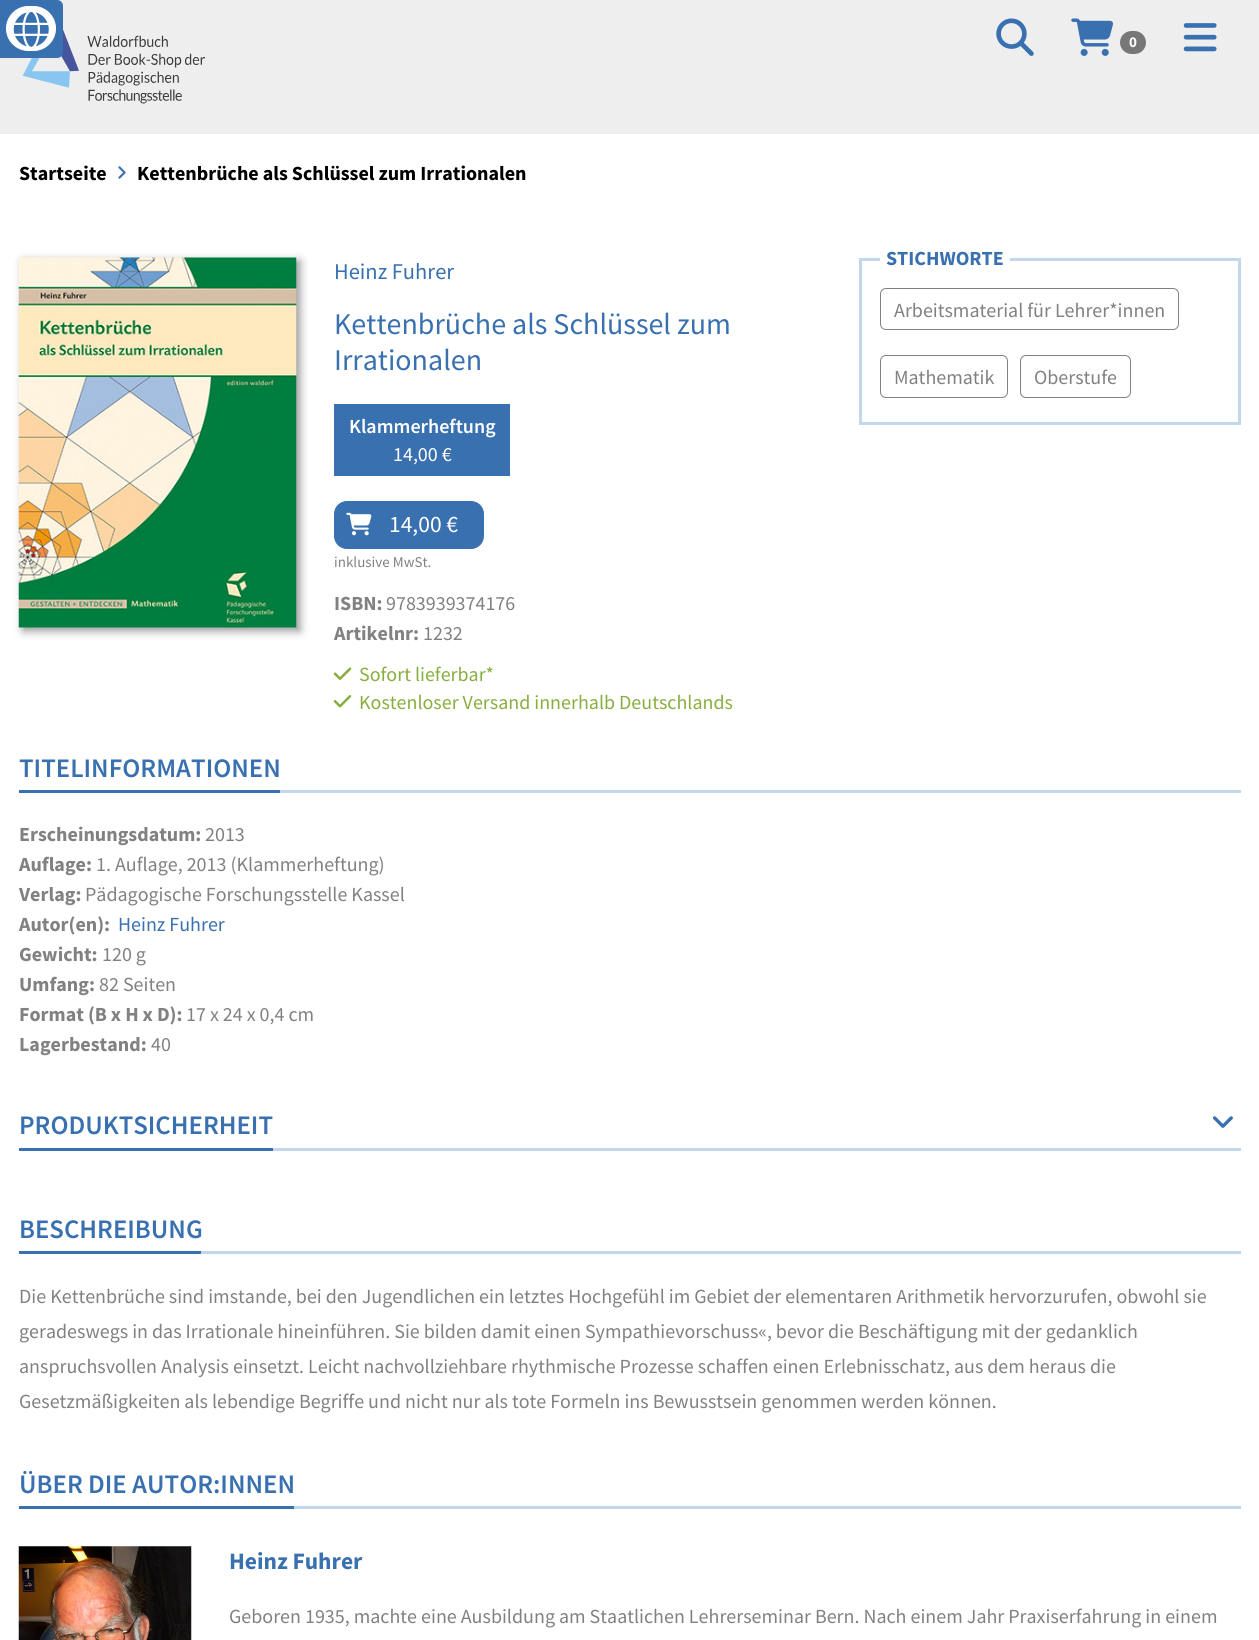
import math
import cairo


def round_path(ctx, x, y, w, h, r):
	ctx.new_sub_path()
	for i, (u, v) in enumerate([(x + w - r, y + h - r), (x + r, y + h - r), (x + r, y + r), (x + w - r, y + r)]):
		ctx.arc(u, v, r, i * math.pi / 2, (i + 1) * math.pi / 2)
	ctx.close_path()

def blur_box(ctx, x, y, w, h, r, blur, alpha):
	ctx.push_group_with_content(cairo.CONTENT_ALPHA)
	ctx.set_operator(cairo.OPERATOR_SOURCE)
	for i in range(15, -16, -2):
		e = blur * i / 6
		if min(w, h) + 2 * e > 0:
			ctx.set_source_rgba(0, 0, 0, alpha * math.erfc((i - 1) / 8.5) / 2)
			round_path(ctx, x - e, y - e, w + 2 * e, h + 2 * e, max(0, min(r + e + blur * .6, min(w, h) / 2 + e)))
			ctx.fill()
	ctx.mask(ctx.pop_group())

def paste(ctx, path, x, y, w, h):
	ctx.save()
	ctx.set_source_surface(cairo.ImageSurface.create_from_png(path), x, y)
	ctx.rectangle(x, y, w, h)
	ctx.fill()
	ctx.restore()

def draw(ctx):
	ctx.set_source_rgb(1, 1, 1)
	ctx.paint()
	ctx.set_source_rgb(0.933, 0.933, 0.933)
	ctx.rectangle(0, 0, 1259, 134)
	ctx.fill()
	paste(ctx, 'media/2.png', 22, 29, 183, 75)
	ctx.set_source_rgb(0.224, 0.439, 0.69)
	ctx.new_path()
	ctx.move_to(0, 0)
	ctx.line_to(57, 0)
	ctx.curve_to(60.5, 0, 63, 2.5, 63, 6)
	ctx.line_to(63, 52)
	ctx.curve_to(63, 55.5, 60.5, 58, 57, 58)
	ctx.line_to(0, 58)
	ctx.close_path()
	ctx.fill()
	ctx.set_source_rgb(1, 1, 1)
	round_path(ctx, 6.5, 6.5, 49, 44, 22)
	ctx.fill_preserve()
	ctx.set_line_width(1)
	ctx.stroke()
	paste(ctx, 'media/1.png', 13, 11, 36, 36)
	paste(ctx, 'media/3.png', 996, 18, 38, 38)
	paste(ctx, 'media/4.png', 1071, 18, 42, 38)
	ctx.set_source_rgb(0.467, 0.467, 0.467)
	round_path(ctx, 1120, 31, 26, 23, 11.5)
	ctx.fill()
	ctx.select_font_face('Source Sans Pro', cairo.FONT_SLANT_NORMAL, cairo.FONT_WEIGHT_BOLD)
	ctx.set_font_size(15)
	ctx.set_source_rgb(1, 1, 1)
	ctx.move_to(1129, 47)
	ctx.show_text('0')
	paste(ctx, 'media/5.png', 1183, 23, 34, 29)
	ctx.set_font_size(20)
	ctx.set_source_rgb(0, 0, 0)
	ctx.move_to(19, 180)
	ctx.show_text('Startseite')
	paste(ctx, 'media/6.png', 118, 166, 8, 13)
	ctx.move_to(137, 180)
	ctx.show_text('Kettenbrüche als Schlüssel zum Irrationalen')
	ctx.set_source_rgb(0, 0, 0)
	blur_box(ctx, 23, 261, 277, 370, 0, 4.5, 0.41)
	paste(ctx, 'media/7.png', 18, 257, 279, 371)
	ctx.select_font_face('Source Sans Pro')
	ctx.set_font_size(22.5)
	ctx.set_source_rgb(0.224, 0.439, 0.69)
	ctx.move_to(334, 279)
	ctx.show_text('Heinz Fuhrer')
	ctx.set_font_size(30)
	ctx.move_to(334, 334)
	ctx.show_text('Kettenbrüche als Schlüssel zum')
	ctx.move_to(334, 370)
	ctx.show_text('Irrationalen')
	ctx.rectangle(334, 404, 176, 72)
	ctx.fill()
	ctx.select_font_face('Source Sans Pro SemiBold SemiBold')
	ctx.set_font_size(20)
	ctx.set_source_rgb(1, 1, 1)
	ctx.move_to(349, 433)
	ctx.show_text('Klammerheftung')
	ctx.select_font_face('Source Sans Pro')
	ctx.move_to(393, 461)
	ctx.show_text('14,00 €')
	ctx.set_source_rgb(0.224, 0.439, 0.69)
	round_path(ctx, 334.5, 501.5, 149, 47, 12.5)
	ctx.fill_preserve()
	ctx.stroke()
	paste(ctx, 'media/8.png', 346, 512, 26, 24)
	ctx.set_font_size(23.5)
	ctx.set_source_rgb(1, 1, 1)
	ctx.move_to(389, 532)
	ctx.show_text('14,00 €')
	ctx.set_font_size(15)
	ctx.set_source_rgb(0.506, 0.506, 0.506)
	ctx.move_to(334, 567)
	ctx.show_text('inklusive MwSt.')
	ctx.select_font_face('Source Sans Pro', cairo.FONT_SLANT_NORMAL, cairo.FONT_WEIGHT_BOLD)
	ctx.set_font_size(20)
	ctx.move_to(334, 610)
	ctx.show_text('ISBN:')
	ctx.select_font_face('Source Sans Pro')
	ctx.move_to(386, 610)
	ctx.show_text('9783939374176')
	ctx.select_font_face('Source Sans Pro', cairo.FONT_SLANT_NORMAL, cairo.FONT_WEIGHT_BOLD)
	ctx.move_to(334, 640)
	ctx.show_text('Artikelnr:')
	ctx.select_font_face('Source Sans Pro')
	ctx.move_to(423, 640)
	ctx.show_text('1232')
	paste(ctx, 'media/9.png', 333, 667, 19, 13)
	ctx.set_source_rgb(0.533, 0.682, 0.247)
	ctx.move_to(359, 681)
	ctx.show_text('Sofort lieferbar*')
	paste(ctx, 'media/10.png', 333, 695, 19, 13)
	ctx.move_to(359, 709)
	ctx.show_text('Kostenloser Versand innerhalb Deutschlands')
	ctx.rectangle(860.5, 259.5, 379, 164)
	ctx.set_source_rgb(0.761, 0.843, 0.925)
	ctx.set_line_width(3)
	ctx.stroke()
	ctx.set_source_rgb(1, 1, 1)
	ctx.rectangle(880, 258, 130, 3)
	ctx.fill()
	ctx.select_font_face('Source Sans Pro', cairo.FONT_SLANT_NORMAL, cairo.FONT_WEIGHT_BOLD)
	ctx.set_source_rgb(0.224, 0.439, 0.69)
	ctx.move_to(886, 265)
	ctx.show_text('STICHWORTE')
	round_path(ctx, 880.5, 288.5, 298, 41, 5.5)
	ctx.set_source_rgb(0.506, 0.506, 0.506)
	ctx.set_line_width(1)
	ctx.stroke()
	ctx.select_font_face('Source Sans Pro')
	ctx.move_to(894, 317)
	ctx.show_text('Arbeitsmaterial für Lehrer*innen')
	round_path(ctx, 880.5, 355.5, 127, 42, 5.5)
	ctx.stroke()
	ctx.move_to(894, 384)
	ctx.show_text('Mathematik')
	round_path(ctx, 1020.5, 355.5, 110, 42, 5.5)
	ctx.stroke()
	ctx.move_to(1034, 384)
	ctx.show_text('Oberstufe')
	ctx.set_source_rgb(0.761, 0.843, 0.925)
	ctx.rectangle(280, 790, 961, 3)
	ctx.fill()
	ctx.set_source_rgb(0.224, 0.439, 0.69)
	ctx.rectangle(19, 790, 261, 3)
	ctx.fill()
	ctx.select_font_face('Source Sans Pro SemiBold SemiBold')
	ctx.set_font_size(26.75)
	ctx.move_to(19, 777)
	ctx.show_text('TITELINFORMATIONEN')
	ctx.select_font_face('Source Sans Pro', cairo.FONT_SLANT_NORMAL, cairo.FONT_WEIGHT_BOLD)
	ctx.set_font_size(20)
	ctx.set_source_rgb(0.506, 0.506, 0.506)
	ctx.move_to(19, 841)
	ctx.show_text('Erscheinungsdatum:')
	ctx.select_font_face('Source Sans Pro')
	ctx.move_to(205, 841)
	ctx.show_text('2013')
	ctx.select_font_face('Source Sans Pro', cairo.FONT_SLANT_NORMAL, cairo.FONT_WEIGHT_BOLD)
	ctx.move_to(19, 871)
	ctx.show_text('Auflage:')
	ctx.select_font_face('Source Sans Pro')
	ctx.move_to(96, 871)
	ctx.show_text('1. Auflage, 2013 (Klammerheftung)')
	ctx.select_font_face('Source Sans Pro', cairo.FONT_SLANT_NORMAL, cairo.FONT_WEIGHT_BOLD)
	ctx.move_to(19, 901)
	ctx.show_text('Verlag:')
	ctx.select_font_face('Source Sans Pro')
	ctx.move_to(85, 901)
	ctx.show_text('Pädagogische Forschungsstelle Kassel')
	ctx.select_font_face('Source Sans Pro', cairo.FONT_SLANT_NORMAL, cairo.FONT_WEIGHT_BOLD)
	ctx.move_to(19, 931)
	ctx.show_text('Autor(en):')
	ctx.select_font_face('Source Sans Pro')
	ctx.set_source_rgb(0.224, 0.439, 0.69)
	ctx.move_to(118, 931)
	ctx.show_text('Heinz Fuhrer')
	ctx.select_font_face('Source Sans Pro', cairo.FONT_SLANT_NORMAL, cairo.FONT_WEIGHT_BOLD)
	ctx.set_source_rgb(0.506, 0.506, 0.506)
	ctx.move_to(19, 961)
	ctx.show_text('Gewicht:')
	ctx.select_font_face('Source Sans Pro')
	ctx.move_to(102, 961)
	ctx.show_text('120 g')
	ctx.select_font_face('Source Sans Pro', cairo.FONT_SLANT_NORMAL, cairo.FONT_WEIGHT_BOLD)
	ctx.move_to(19, 991)
	ctx.show_text('Umfang:')
	ctx.select_font_face('Source Sans Pro')
	ctx.move_to(99, 991)
	ctx.show_text('82 Seiten')
	ctx.select_font_face('Source Sans Pro', cairo.FONT_SLANT_NORMAL, cairo.FONT_WEIGHT_BOLD)
	ctx.move_to(19, 1021)
	ctx.show_text('Format (B x H x D):')
	ctx.select_font_face('Source Sans Pro')
	ctx.move_to(186, 1021)
	ctx.show_text('17 x 24 x 0,4 cm')
	ctx.select_font_face('Source Sans Pro', cairo.FONT_SLANT_NORMAL, cairo.FONT_WEIGHT_BOLD)
	ctx.move_to(19, 1051)
	ctx.show_text('Lagerbestand:')
	ctx.select_font_face('Source Sans Pro')
	ctx.move_to(151, 1051)
	ctx.show_text('40')
	ctx.set_source_rgb(0.761, 0.843, 0.925)
	ctx.rectangle(273, 1148, 968, 3)
	ctx.fill()
	ctx.set_source_rgb(0.224, 0.439, 0.69)
	ctx.rectangle(19, 1148, 254, 3)
	ctx.fill()
	ctx.select_font_face('Source Sans Pro SemiBold SemiBold')
	ctx.set_font_size(26.75)
	ctx.move_to(19, 1134)
	ctx.show_text('PRODUKTSICHERHEIT')
	paste(ctx, 'media/11.png', 1212, 1116, 21, 12)
	ctx.set_source_rgb(0.761, 0.843, 0.925)
	ctx.rectangle(201, 1251, 1040, 3)
	ctx.fill()
	ctx.set_source_rgb(0.224, 0.439, 0.69)
	ctx.rectangle(19, 1251, 182, 3)
	ctx.fill()
	ctx.move_to(19, 1238)
	ctx.show_text('BESCHREIBUNG')
	ctx.select_font_face('Source Sans Pro')
	ctx.set_font_size(20)
	ctx.set_source_rgb(0.506, 0.506, 0.506)
	for x, y, s in [
		(19, 1303, 'Die Kettenbrüche sind imstande, bei den Jugendlichen ein letztes Hochgefühl im Gebiet der elementaren Arithmetik hervorzurufen, obwohl sie'),
		(19, 1338, 'geradeswegs in das Irrationale hineinführen. Sie bilden damit einen Sympathievorschuss«, bevor die Beschäftigung mit der gedanklich'),
		(19, 1373, 'anspruchsvollen Analysis einsetzt. Leicht nachvollziehbare rhythmische Prozesse schaffen einen Erlebnisschatz, aus dem heraus die'),
		(19, 1408, 'Gesetzmäßigkeiten als lebendige Begriffe und nicht nur als tote Formeln ins Bewusstsein genommen werden können.'),
	]:
		ctx.move_to(x, y)
		ctx.show_text(s)
	ctx.set_source_rgb(0.761, 0.843, 0.925)
	ctx.rectangle(294, 1506, 947, 3)
	ctx.fill()
	ctx.set_source_rgb(0.224, 0.439, 0.69)
	ctx.rectangle(19, 1506, 275, 3)
	ctx.fill()
	ctx.select_font_face('Source Sans Pro SemiBold SemiBold')
	ctx.set_font_size(26.75)
	ctx.move_to(19, 1493)
	ctx.show_text('ÜBER DIE AUTOR:INNEN')
	paste(ctx, 'media/12.png', 18, 1546, 174, 94)
	ctx.select_font_face('Source Sans Pro', cairo.FONT_SLANT_NORMAL, cairo.FONT_WEIGHT_BOLD)
	ctx.set_font_size(23.5)
	ctx.move_to(229, 1569)
	ctx.show_text('Heinz Fuhrer')
	ctx.select_font_face('Source Sans Pro')
	ctx.set_font_size(20)
	ctx.set_source_rgb(0.506, 0.506, 0.506)
	ctx.move_to(229, 1623)
	ctx.show_text('Geboren 1935, machte eine Ausbildung am Staatlichen Lehrerseminar Bern. Nach einem Jahr Praxiserfahrung in einem')


surface = cairo.ImageSurface(cairo.FORMAT_RGB24, 1259, 1640)
ctx = cairo.Context(surface)
options = cairo.FontOptions()
options.set_hint_metrics(cairo.HINT_METRICS_OFF)
options.set_hint_style(cairo.HINT_STYLE_NONE)
ctx.set_font_options(options)
ctx.set_miter_limit(4)
draw(ctx)
surface.write_to_png('image.png')
